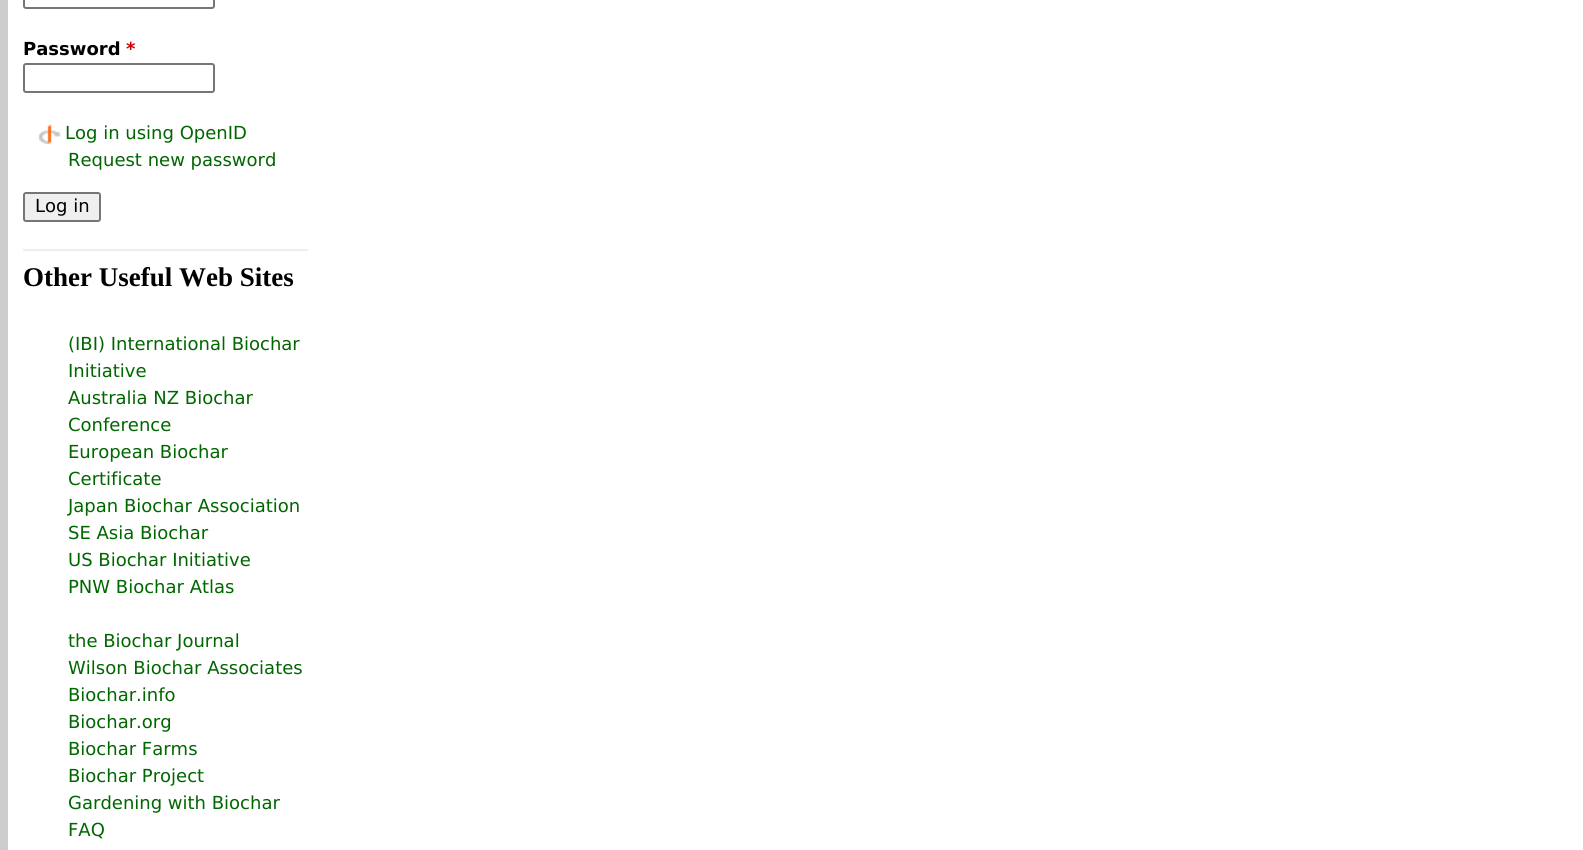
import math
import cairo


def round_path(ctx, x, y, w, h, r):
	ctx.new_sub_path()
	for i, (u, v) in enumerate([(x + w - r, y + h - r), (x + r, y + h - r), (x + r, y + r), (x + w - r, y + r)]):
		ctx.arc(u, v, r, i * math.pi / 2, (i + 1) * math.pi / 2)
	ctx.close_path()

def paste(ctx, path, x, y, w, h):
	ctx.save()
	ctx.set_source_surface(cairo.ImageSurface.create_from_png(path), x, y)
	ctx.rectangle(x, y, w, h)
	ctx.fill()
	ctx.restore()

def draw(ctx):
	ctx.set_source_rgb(1, 1, 1)
	ctx.paint()
	ctx.set_source_rgb(0.8, 0.8, 0.8)
	ctx.new_path()
	ctx.move_to(0, 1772)
	ctx.line_to(0, -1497)
	ctx.line_to(8, -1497)
	ctx.line_to(8, 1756)
	ctx.close_path()
	ctx.fill()
	round_path(ctx, 24, -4, 190, 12, 2)
	ctx.set_source_rgb(0.463, 0.463, 0.463)
	ctx.stroke()
	ctx.select_font_face('DejaVu Sans', cairo.FONT_SLANT_NORMAL, cairo.FONT_WEIGHT_BOLD)
	ctx.set_font_size(18)
	ctx.set_source_rgb(0, 0, 0)
	ctx.move_to(23, 55)
	ctx.show_text('Password')
	ctx.set_source_rgb(0.8, 0, 0)
	ctx.move_to(126, 55)
	ctx.show_text('*')
	round_path(ctx, 24, 64, 190, 28, 2)
	ctx.set_source_rgb(0.463, 0.463, 0.463)
	ctx.stroke()
	paste(ctx, 'media/1.png', 38, 124, 23, 20)
	ctx.select_font_face('DejaVu Sans')
	ctx.set_source_rgb(0, 0.4, 0)
	ctx.move_to(65, 139)
	ctx.show_text('Log in using OpenID')
	ctx.move_to(68, 166)
	ctx.show_text('Request new password')
	ctx.set_source_rgb(0.937, 0.937, 0.937)
	round_path(ctx, 24, 193, 76, 28, 2)
	ctx.fill_preserve()
	ctx.set_source_rgb(0.463, 0.463, 0.463)
	ctx.stroke()
	ctx.set_source_rgb(0, 0, 0)
	ctx.move_to(35, 212)
	ctx.show_text('Log in')
	ctx.set_source_rgb(0.933, 0.933, 0.933)
	ctx.rectangle(23, 249, 285, 2)
	ctx.fill()
	ctx.select_font_face('Liberation Serif', cairo.FONT_SLANT_NORMAL, cairo.FONT_WEIGHT_BOLD)
	ctx.set_font_size(27)
	ctx.set_source_rgb(0, 0, 0)
	ctx.move_to(23, 286)
	ctx.show_text('Other Useful Web Sites')
	ctx.select_font_face('DejaVu Sans')
	ctx.set_font_size(18)
	ctx.set_source_rgb(0, 0.4, 0)
	for x, y, s in [
		(68, 350, '(IBI) International Biochar'),
		(68, 377, 'Initiative'),
		(68, 404, 'Australia NZ Biochar'),
		(68, 431, 'Conference'),
		(68, 458, 'European Biochar'),
		(68, 485, 'Certificate'),
		(68, 512, 'Japan Biochar Association'),
		(68, 539, 'SE Asia Biochar'),
		(68, 566, 'US Biochar Initiative'),
		(68, 593, 'PNW Biochar Atlas'),
		(68, 647, 'the Biochar Journal'),
		(68, 674, 'Wilson Biochar Associates'),
		(68, 701, 'Biochar.info'),
		(68, 728, 'Biochar.org'),
		(68, 755, 'Biochar Farms'),
		(68, 782, 'Biochar Project'),
		(68, 809, 'Gardening with Biochar'),
		(68, 836, 'FAQ'),
	]:
		ctx.move_to(x, y)
		ctx.show_text(s)


surface = cairo.ImageSurface(cairo.FORMAT_RGB24, 1583, 850)
ctx = cairo.Context(surface)
options = cairo.FontOptions()
options.set_hint_metrics(cairo.HINT_METRICS_OFF)
options.set_hint_style(cairo.HINT_STYLE_NONE)
ctx.set_font_options(options)
ctx.set_miter_limit(4)
draw(ctx)
surface.write_to_png('image.png')
